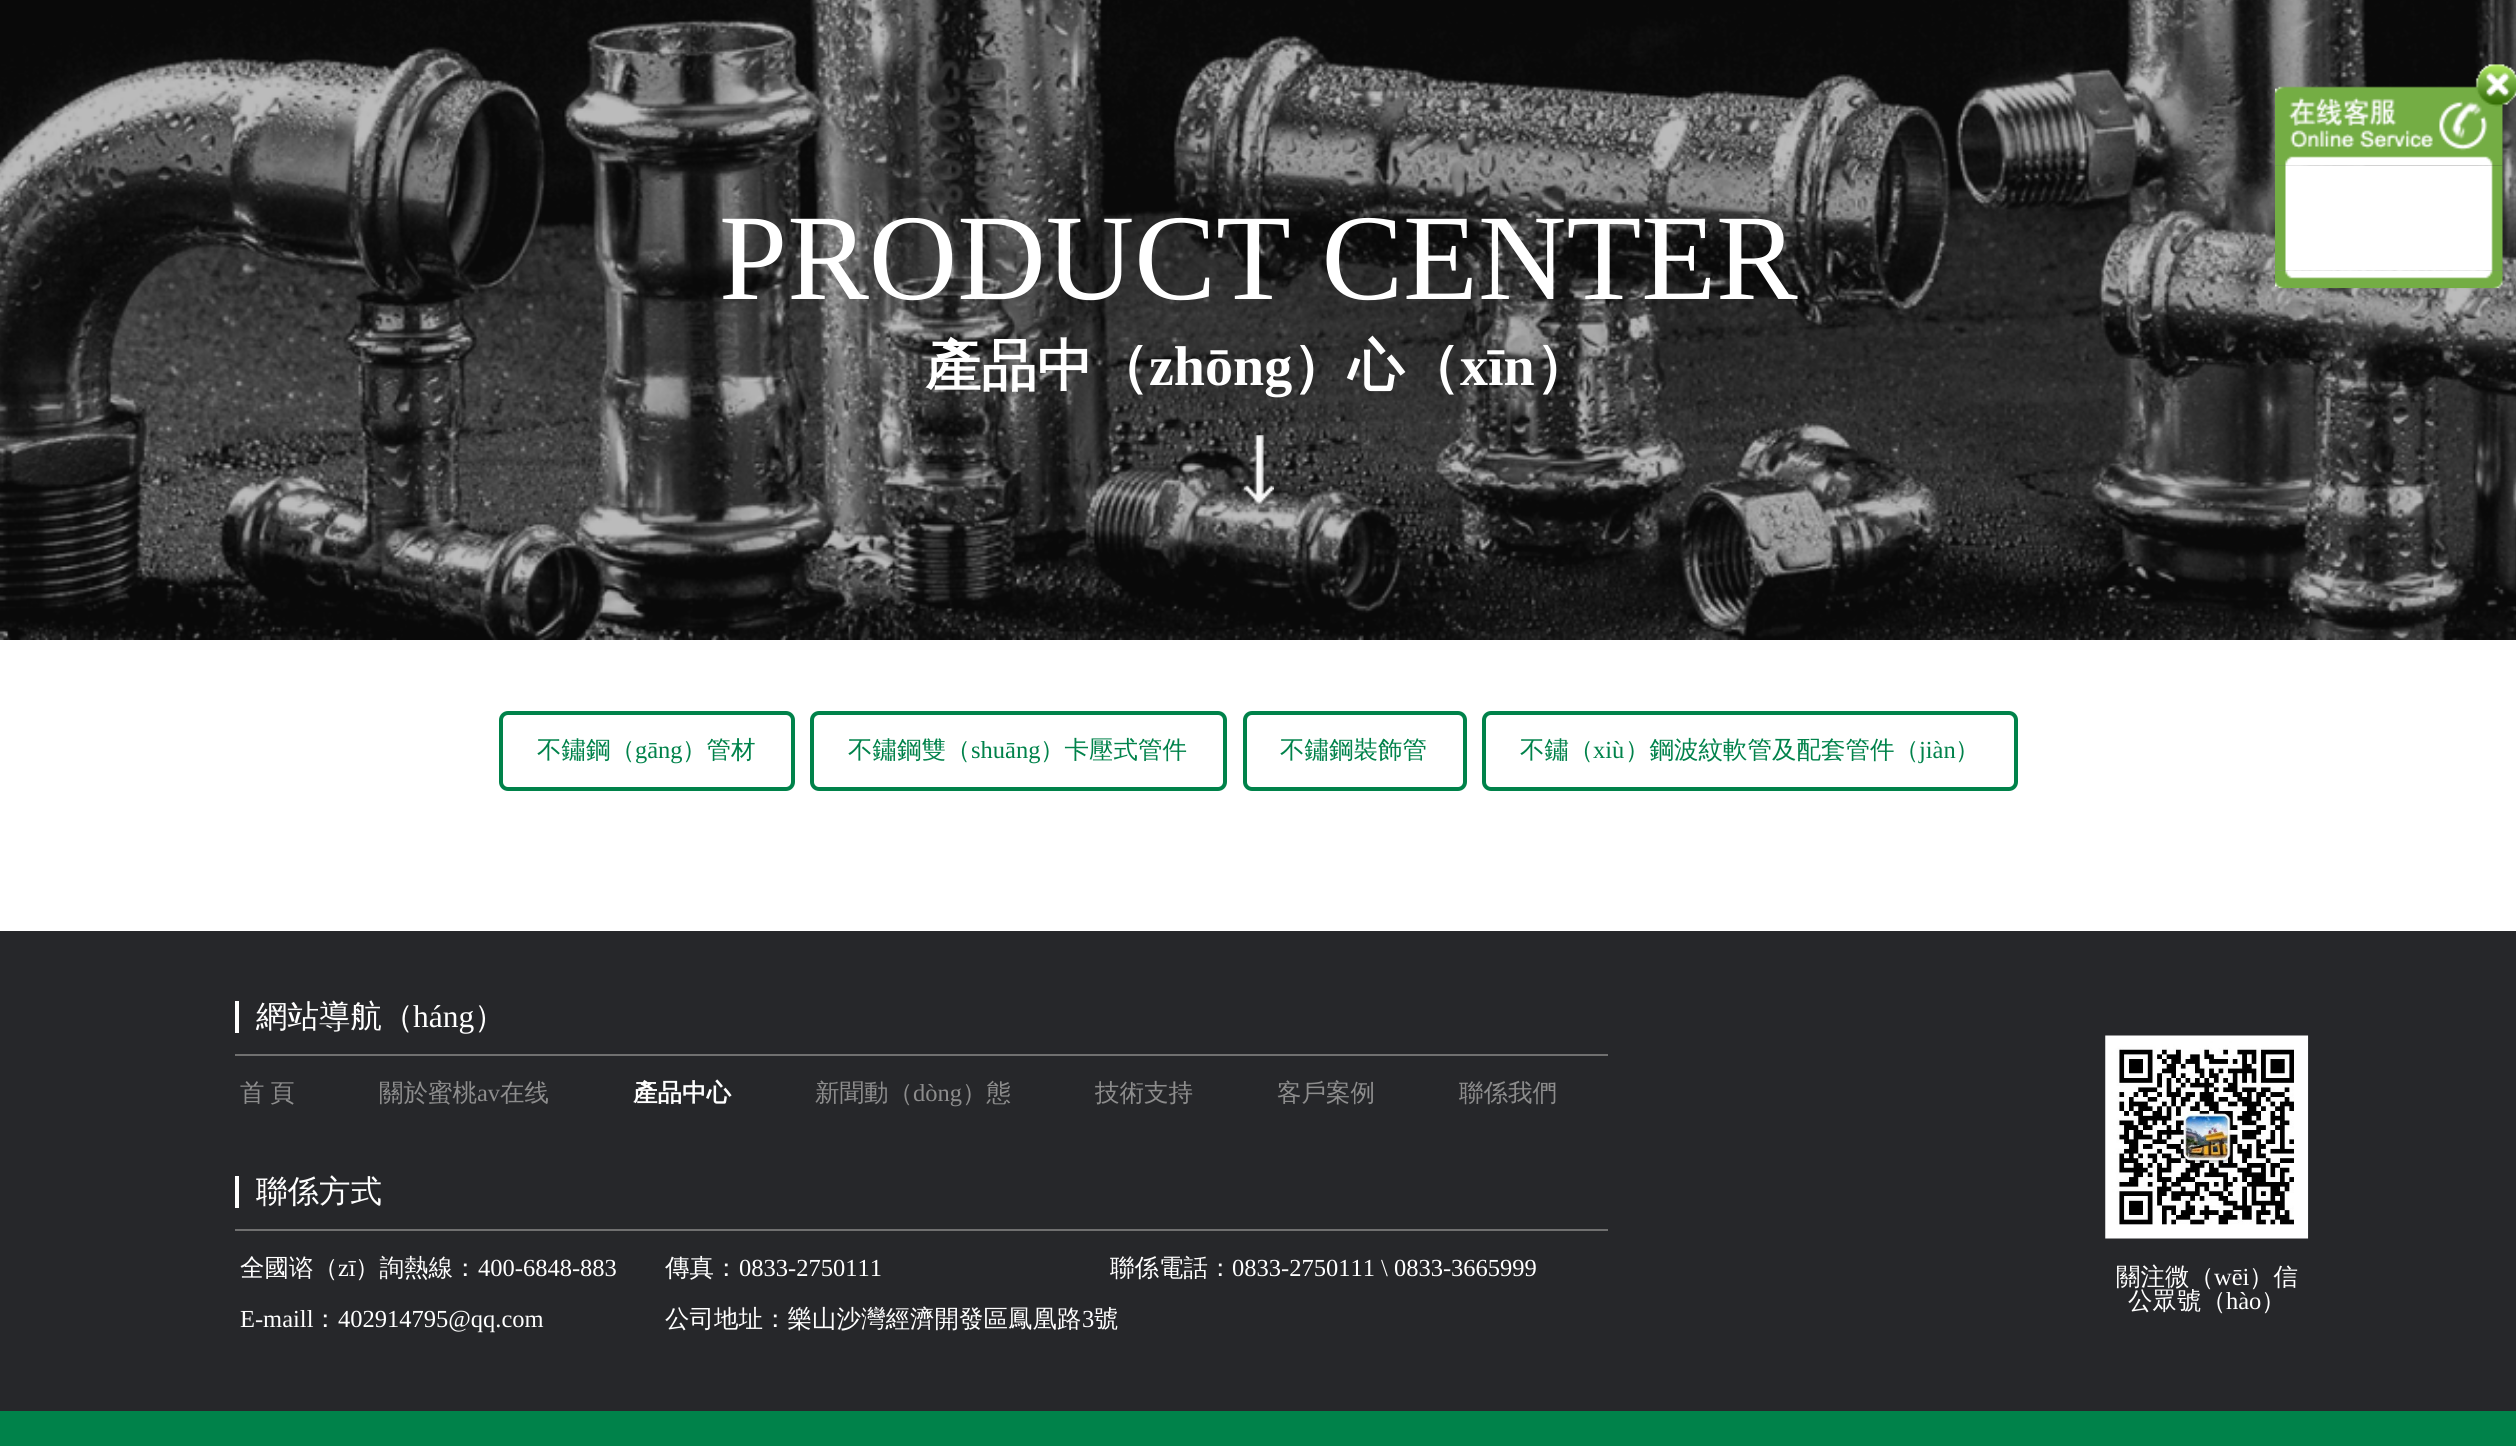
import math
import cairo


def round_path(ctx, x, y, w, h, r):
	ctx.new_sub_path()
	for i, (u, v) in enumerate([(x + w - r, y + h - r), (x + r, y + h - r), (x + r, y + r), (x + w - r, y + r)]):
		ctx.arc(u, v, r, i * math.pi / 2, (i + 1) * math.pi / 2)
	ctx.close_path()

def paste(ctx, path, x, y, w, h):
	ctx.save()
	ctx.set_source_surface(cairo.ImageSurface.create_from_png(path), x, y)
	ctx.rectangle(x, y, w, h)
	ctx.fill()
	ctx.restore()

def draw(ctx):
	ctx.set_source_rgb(1, 1, 1)
	ctx.paint()
	paste(ctx, 'media/4.png', 0, 0, 2516, 640)
	paste(ctx, 'media/1.png', 2275, 270, 228, 19)
	paste(ctx, 'media/3.png', 2275, 165, 228, 106)
	paste(ctx, 'media/2.png', 2275, 64, 241, 102)
	paste(ctx, 'media/5.png', 1244, 435, 30, 69)
	ctx.select_font_face('Liberation Serif')
	ctx.set_font_size(122.5)
	ctx.set_source_rgb(1, 1, 1)
	ctx.move_to(719, 299)
	ctx.show_text('PRODUCT CENTER')
	ctx.select_font_face('WenQuanYi Zen Hei', cairo.FONT_SLANT_NORMAL, cairo.FONT_WEIGHT_BOLD)
	ctx.set_font_size(56)
	ctx.move_to(925, 385)
	ctx.show_text('產品中（')
	ctx.select_font_face('Liberation Serif', cairo.FONT_SLANT_NORMAL, cairo.FONT_WEIGHT_BOLD)
	ctx.move_to(1149, 385)
	ctx.show_text('zhōng')
	ctx.select_font_face('WenQuanYi Zen Hei', cairo.FONT_SLANT_NORMAL, cairo.FONT_WEIGHT_BOLD)
	ctx.move_to(1292, 385)
	ctx.show_text('）心（')
	ctx.select_font_face('Liberation Serif', cairo.FONT_SLANT_NORMAL, cairo.FONT_WEIGHT_BOLD)
	ctx.move_to(1460, 385)
	ctx.show_text('xīn')
	ctx.select_font_face('WenQuanYi Zen Hei', cairo.FONT_SLANT_NORMAL, cairo.FONT_WEIGHT_BOLD)
	ctx.move_to(1535, 385)
	ctx.show_text('）')
	round_path(ctx, 501, 713, 292, 76, 7)
	ctx.set_source_rgb(0, 0.51, 0.29)
	ctx.set_line_width(4)
	ctx.stroke()
	ctx.select_font_face('WenQuanYi Zen Hei Medium')
	ctx.set_font_size(24.5)
	ctx.move_to(537, 758)
	ctx.show_text('不鏽鋼（')
	ctx.select_font_face('Liberation Serif')
	ctx.move_to(635, 758)
	ctx.show_text('gāng')
	ctx.select_font_face('WenQuanYi Zen Hei Medium')
	ctx.move_to(682, 758)
	ctx.show_text('）管材')
	round_path(ctx, 812, 713, 413, 76, 7)
	ctx.stroke()
	ctx.move_to(848, 758)
	ctx.show_text('不鏽鋼雙（')
	ctx.select_font_face('Liberation Serif')
	ctx.move_to(971, 758)
	ctx.show_text('shuāng')
	ctx.select_font_face('WenQuanYi Zen Hei Medium')
	ctx.move_to(1040, 758)
	ctx.show_text('）卡壓式管件')
	round_path(ctx, 1245, 713, 220, 76, 7)
	ctx.stroke()
	ctx.move_to(1280, 758)
	ctx.show_text('不鏽鋼裝飾管')
	round_path(ctx, 1484, 713, 532, 76, 7)
	ctx.stroke()
	ctx.move_to(1520, 758)
	ctx.show_text('不鏽（')
	ctx.select_font_face('Liberation Serif')
	ctx.move_to(1593, 758)
	ctx.show_text('xiù')
	ctx.select_font_face('WenQuanYi Zen Hei Medium')
	ctx.move_to(1625, 758)
	ctx.show_text('）鋼波紋軟管及配套管件（')
	ctx.select_font_face('Liberation Serif')
	ctx.move_to(1919, 758)
	ctx.show_text('jiàn')
	ctx.select_font_face('WenQuanYi Zen Hei Medium')
	ctx.move_to(1955, 758)
	ctx.show_text('）')
	ctx.set_source_rgb(0.149, 0.153, 0.165)
	ctx.rectangle(0, 931, 2516, 480)
	ctx.fill()
	ctx.set_source_rgb(1, 1, 1)
	ctx.rectangle(235, 1001, 4, 32)
	ctx.fill()
	ctx.set_font_size(31.5)
	ctx.move_to(256, 1027)
	ctx.show_text('網站導航（')
	ctx.select_font_face('Liberation Serif')
	ctx.move_to(413, 1027)
	ctx.show_text('háng')
	ctx.select_font_face('WenQuanYi Zen Hei Medium')
	ctx.move_to(474, 1027)
	ctx.show_text('）')
	ctx.set_source_rgb(0.439, 0.439, 0.439)
	ctx.rectangle(235, 1054, 1373, 2)
	ctx.fill()
	ctx.set_font_size(24.5)
	ctx.set_source_rgb(0.553, 0.553, 0.553)
	for x, y, s in [
		(240, 1101, '首'),
		(270, 1101, '頁'),
		(379, 1101, '關於蜜桃'),
	]:
		ctx.move_to(x, y)
		ctx.show_text(s)
	ctx.select_font_face('Liberation Serif')
	ctx.move_to(477, 1101)
	ctx.show_text('av')
	ctx.select_font_face('WenQuanYi Zen Hei Medium')
	ctx.move_to(500, 1101)
	ctx.show_text('在线')
	ctx.select_font_face('WenQuanYi Zen Hei', cairo.FONT_SLANT_NORMAL, cairo.FONT_WEIGHT_BOLD)
	ctx.set_source_rgb(1, 1, 1)
	ctx.move_to(633, 1101)
	ctx.show_text('產品中心')
	ctx.select_font_face('WenQuanYi Zen Hei Medium')
	ctx.set_source_rgb(0.553, 0.553, 0.553)
	ctx.move_to(815, 1101)
	ctx.show_text('新聞動（')
	ctx.select_font_face('Liberation Serif')
	ctx.move_to(913, 1101)
	ctx.show_text('dòng')
	ctx.select_font_face('WenQuanYi Zen Hei Medium')
	for x, y, s in [
		(962, 1101, '）態'),
		(1095, 1101, '技術支持'),
		(1277, 1101, '客戶案例'),
		(1459, 1101, '聯係我們'),
	]:
		ctx.move_to(x, y)
		ctx.show_text(s)
	ctx.set_source_rgb(1, 1, 1)
	ctx.rectangle(235, 1176, 4, 32)
	ctx.fill()
	ctx.set_font_size(31.5)
	ctx.move_to(256, 1202)
	ctx.show_text('聯係方式')
	ctx.set_source_rgb(0.439, 0.439, 0.439)
	ctx.rectangle(235, 1229, 1373, 2)
	ctx.fill()
	ctx.set_font_size(24.5)
	ctx.set_source_rgb(1, 1, 1)
	ctx.move_to(240, 1276)
	ctx.show_text('全國谘（')
	ctx.select_font_face('Liberation Serif')
	ctx.move_to(338, 1276)
	ctx.show_text('zī')
	ctx.select_font_face('WenQuanYi Zen Hei Medium')
	ctx.move_to(355, 1276)
	ctx.show_text('）詢熱線：')
	ctx.select_font_face('Liberation Serif')
	ctx.move_to(478, 1276)
	ctx.show_text('400-6848-883')
	ctx.select_font_face('WenQuanYi Zen Hei Medium')
	ctx.move_to(665, 1276)
	ctx.show_text('傳真：')
	ctx.select_font_face('Liberation Serif')
	ctx.move_to(739, 1276)
	ctx.show_text('0833-2750111')
	ctx.select_font_face('WenQuanYi Zen Hei Medium')
	ctx.move_to(1110, 1276)
	ctx.show_text('聯係電話：')
	ctx.select_font_face('Liberation Serif')
	ctx.move_to(1232, 1276)
	ctx.show_text('0833-2750111 \\ 0833-3665999')
	ctx.move_to(240, 1327)
	ctx.show_text('E-maill')
	ctx.select_font_face('WenQuanYi Zen Hei Medium')
	ctx.move_to(313, 1327)
	ctx.show_text('：')
	ctx.select_font_face('Liberation Serif')
	ctx.move_to(338, 1327)
	ctx.show_text('402914795@qq.com')
	ctx.select_font_face('WenQuanYi Zen Hei Medium')
	ctx.move_to(665, 1327)
	ctx.show_text('公司地址：樂山沙灣經濟開發區鳳凰路')
	ctx.select_font_face('Liberation Serif')
	ctx.move_to(1082, 1327)
	ctx.show_text('3')
	ctx.select_font_face('WenQuanYi Zen Hei Medium')
	ctx.move_to(1094, 1327)
	ctx.show_text('號')
	paste(ctx, 'media/6.png', 2105, 1035, 204, 204)
	ctx.move_to(2116, 1285)
	ctx.show_text('關注微（')
	ctx.select_font_face('Liberation Serif')
	ctx.move_to(2214, 1285)
	ctx.show_text('wēi')
	ctx.select_font_face('WenQuanYi Zen Hei Medium')
	ctx.move_to(2249, 1285)
	ctx.show_text('）信')
	ctx.move_to(2128, 1309)
	ctx.show_text('公眾號（')
	ctx.select_font_face('Liberation Serif')
	ctx.move_to(2226, 1309)
	ctx.show_text('hào')
	ctx.select_font_face('WenQuanYi Zen Hei Medium')
	ctx.move_to(2261, 1309)
	ctx.show_text('）')
	ctx.set_source_rgb(0, 0.51, 0.29)
	ctx.rectangle(0, 1411, 2516, 35)
	ctx.fill()


surface = cairo.ImageSurface(cairo.FORMAT_RGB24, 2516, 1446)
ctx = cairo.Context(surface)
options = cairo.FontOptions()
options.set_hint_metrics(cairo.HINT_METRICS_OFF)
options.set_hint_style(cairo.HINT_STYLE_NONE)
ctx.set_font_options(options)
ctx.set_miter_limit(4)
draw(ctx)
surface.write_to_png('image.png')
